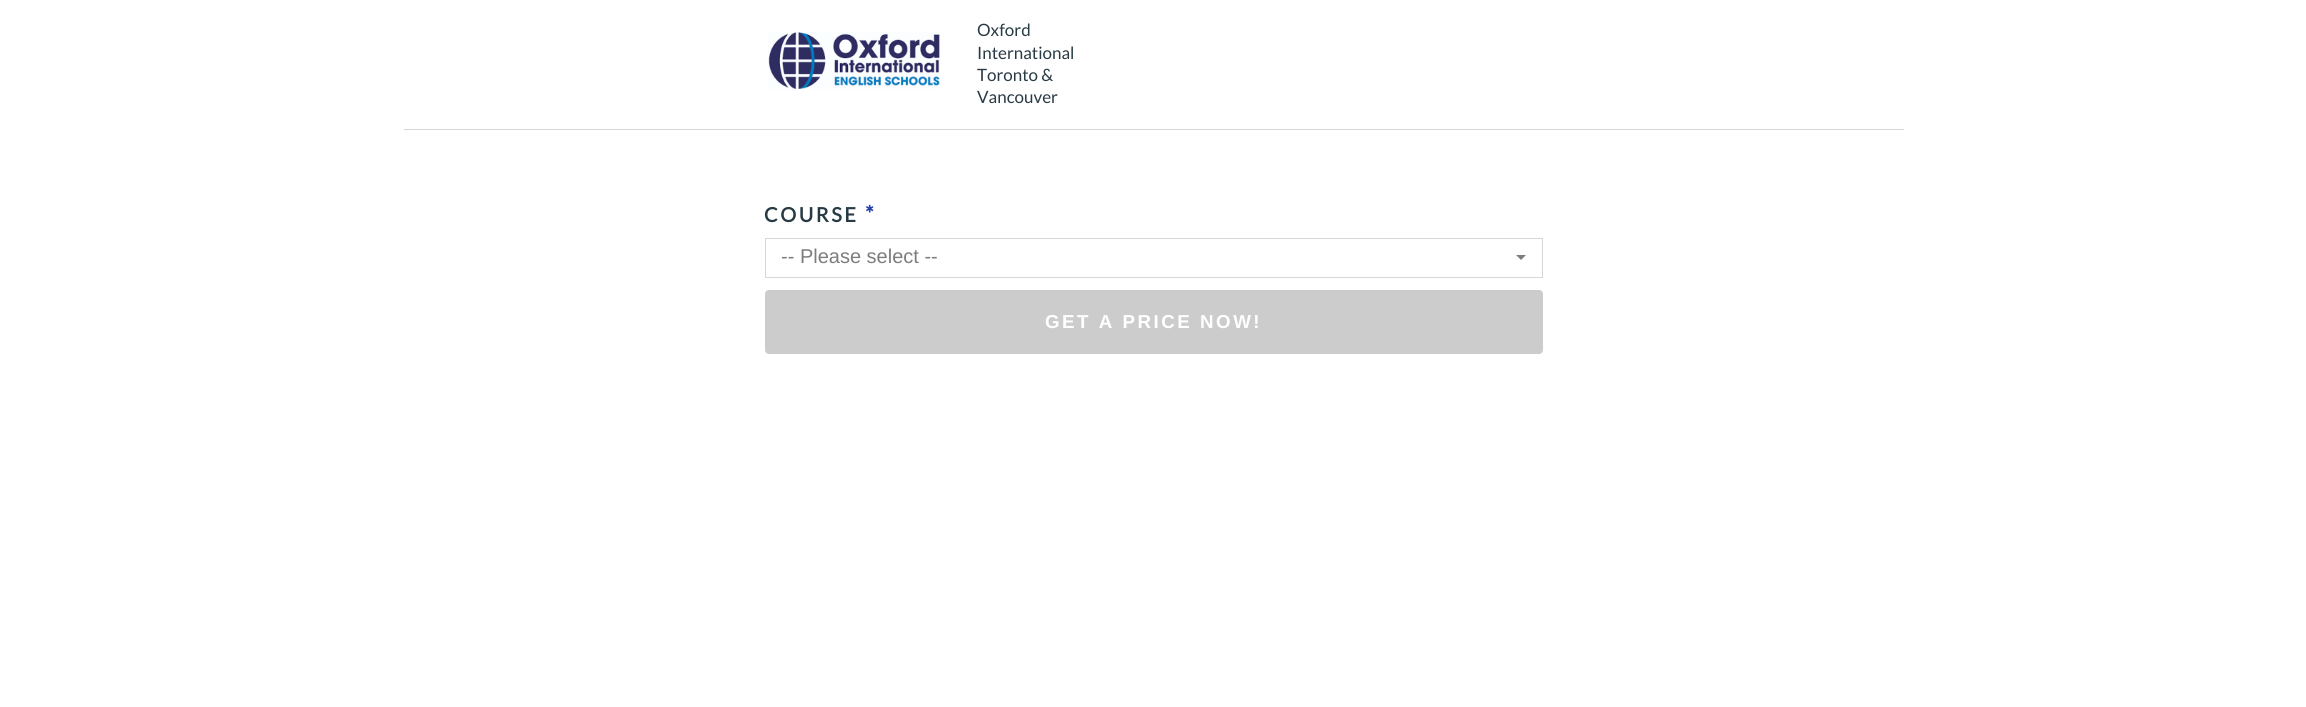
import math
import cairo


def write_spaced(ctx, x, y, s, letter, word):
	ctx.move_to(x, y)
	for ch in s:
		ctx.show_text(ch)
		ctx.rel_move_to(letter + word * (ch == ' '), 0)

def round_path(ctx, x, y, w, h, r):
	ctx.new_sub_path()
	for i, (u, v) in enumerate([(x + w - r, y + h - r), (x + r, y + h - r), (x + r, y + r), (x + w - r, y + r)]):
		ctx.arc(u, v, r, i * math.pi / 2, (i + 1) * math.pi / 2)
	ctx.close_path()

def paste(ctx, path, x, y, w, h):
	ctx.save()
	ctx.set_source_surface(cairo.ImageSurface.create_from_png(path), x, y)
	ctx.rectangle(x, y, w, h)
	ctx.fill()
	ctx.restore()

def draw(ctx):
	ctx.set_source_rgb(1, 1, 1)
	ctx.paint()
	ctx.set_source_rgb(0.843, 0.843, 0.843)
	ctx.rectangle(404, 129, 1500, 1)
	ctx.fill()
	paste(ctx, 'media/1.png', 768, 32, 172, 57)
	ctx.select_font_face('Lato')
	ctx.set_font_size(17)
	ctx.set_source_rgb(0.157, 0.227, 0.267)
	for x, y, s in [
		(977, 36, 'Oxford'),
		(977, 59, 'International'),
		(977, 81, 'Toronto &'),
		(977, 103, 'Vancouver'),
	]:
		ctx.move_to(x, y)
		ctx.show_text(s)
	ctx.select_font_face('Lato', cairo.FONT_SLANT_NORMAL, cairo.FONT_WEIGHT_BOLD)
	ctx.set_font_size(20)
	write_spaced(ctx, 764, 222, 'COURSE', 2.5, 0)
	ctx.set_font_size(22)
	ctx.set_source_rgb(0.149, 0.255, 0.675)
	write_spaced(ctx, 865, 222, '*', 2.5, 0)
	ctx.rectangle(765.5, 238.5, 777, 39)
	ctx.set_source_rgb(0.843, 0.843, 0.843)
	ctx.set_line_width(1)
	ctx.stroke()
	ctx.select_font_face('Liberation Sans')
	ctx.set_font_size(20)
	ctx.set_source_rgb(0.49, 0.49, 0.49)
	ctx.move_to(781, 263)
	ctx.show_text('-- Please select --')
	ctx.new_path()
	ctx.move_to(1516, 255)
	ctx.line_to(1526, 255)
	ctx.line_to(1521, 260)
	ctx.close_path()
	ctx.fill()
	ctx.set_source_rgb(0.8, 0.8, 0.8)
	round_path(ctx, 765, 290, 778, 64, 4)
	ctx.fill()
	ctx.select_font_face('Liberation Sans', cairo.FONT_SLANT_NORMAL, cairo.FONT_WEIGHT_BOLD)
	ctx.set_font_size(18.75)
	ctx.set_source_rgb(1, 1, 1)
	write_spaced(ctx, 1045, 328, 'GET A PRICE NOW!', 2.5, 0)


surface = cairo.ImageSurface(cairo.FORMAT_RGB24, 2306, 707)
ctx = cairo.Context(surface)
options = cairo.FontOptions()
options.set_hint_metrics(cairo.HINT_METRICS_OFF)
options.set_hint_style(cairo.HINT_STYLE_NONE)
ctx.set_font_options(options)
ctx.set_miter_limit(4)
draw(ctx)
surface.write_to_png('image.png')
